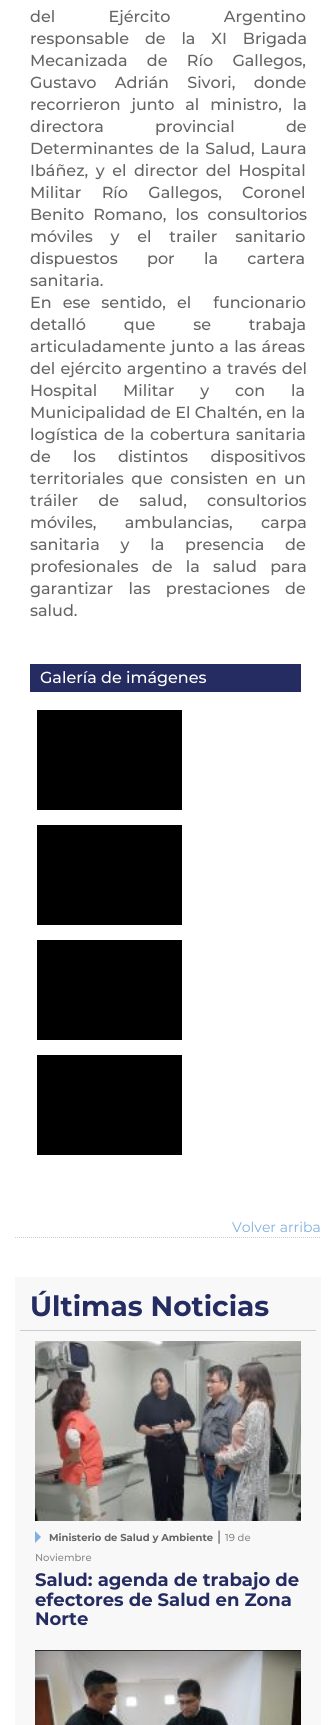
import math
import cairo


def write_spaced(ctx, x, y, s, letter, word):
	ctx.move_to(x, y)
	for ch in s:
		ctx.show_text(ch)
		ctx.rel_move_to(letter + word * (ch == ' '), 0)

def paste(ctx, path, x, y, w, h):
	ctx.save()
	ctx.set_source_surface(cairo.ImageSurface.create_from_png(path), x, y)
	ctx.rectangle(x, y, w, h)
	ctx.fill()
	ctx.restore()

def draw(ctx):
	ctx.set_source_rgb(1, 1, 1)
	ctx.paint()
	ctx.new_path()
	ctx.move_to(15, 1237.5)
	ctx.line_to(321, 1237.5)
	ctx.set_source_rgb(0.8, 0.8, 0.8)
	ctx.set_line_width(1)
	ctx.set_dash([1, 1])
	ctx.stroke()
	ctx.select_font_face('Montserrat Medium')
	ctx.set_font_size(16)
	ctx.set_source_rgb(0.396, 0.396, 0.396)
	write_spaced(ctx, 30, 22, 'del Ejército Argentino', 0, 49)
	write_spaced(ctx, 30, 44, 'responsable de la XI Brigada', 0, 11.5)
	write_spaced(ctx, 30, 66, 'Mecanizada de Río Gallegos,', 0, 15)
	write_spaced(ctx, 30, 88, 'Gustavo Adrián Sivori, donde', 0, 14)
	write_spaced(ctx, 30, 110, 'recorrieron junto al ministro, la', 0, 6.5)
	write_spaced(ctx, 30, 132, 'directora provincial de', 0, 47)
	write_spaced(ctx, 30, 154, 'Determinantes de la Salud, Laura', 0, 1.5)
	write_spaced(ctx, 30, 176, 'Ibáñez, y el director del Hospital', 0, 3.25)
	write_spaced(ctx, 30, 198, 'Militar Río Gallegos, Coronel', 0, 16)
	write_spaced(ctx, 30, 220, 'Benito Romano, los consultorios', 0, 5)
	write_spaced(ctx, 30, 242, 'móviles y el trailer sanitario', 0, 13.5)
	write_spaced(ctx, 30, 264, 'dispuestos por la cartera', 0, 25)
	ctx.move_to(30, 286)
	ctx.show_text('sanitaria.')
	write_spaced(ctx, 30, 308, 'En ese sentido, el  funcionario', 0, 6.75)
	write_spaced(ctx, 30, 330, 'detalló que se trabaja', 0, 33.5)
	write_spaced(ctx, 30, 352, 'articuladamente junto a las áreas', 0, 1)
	write_spaced(ctx, 30, 374, 'del ejército argentino a través del', 0, 1)
	write_spaced(ctx, 30, 396, 'Hospital Militar y con la', 0, 21.5)
	ctx.move_to(30, 418)
	ctx.show_text('Municipalidad de El Chaltén, en la')
	write_spaced(ctx, 30, 440, 'logística de la cobertura sanitaria', 0, 1.5)
	write_spaced(ctx, 30, 462, 'de los distintos dispositivos', 0, 18)
	write_spaced(ctx, 30, 484, 'territoriales que consisten en un', 0, 3.25)
	write_spaced(ctx, 30, 506, 'tráiler de salud, consultorios', 0, 16)
	write_spaced(ctx, 30, 528, 'móviles, ambulancias, carpa', 0, 24)
	write_spaced(ctx, 30, 550, 'sanitaria y la presencia de', 0, 16.5)
	write_spaced(ctx, 30, 572, 'profesionales de la salud para', 0, 9)
	write_spaced(ctx, 30, 594, 'garantizar las prestaciones de', 0, 11)
	ctx.move_to(30, 616)
	ctx.show_text('salud.')
	ctx.set_source_rgb(0.145, 0.173, 0.38)
	ctx.rectangle(30, 664, 271, 28)
	ctx.fill()
	ctx.set_source_rgb(1, 1, 1)
	ctx.move_to(40, 683)
	ctx.show_text('Galería de imágenes')
	ctx.set_source_rgb(0, 0, 0)
	ctx.rectangle(37, 710, 145, 100)
	ctx.rectangle(37, 825, 145, 100)
	ctx.rectangle(37, 940, 145, 100)
	ctx.rectangle(37, 1055, 145, 100)
	ctx.fill()
	ctx.select_font_face('Montserrat')
	ctx.set_font_size(14)
	ctx.set_source_rgb(0.502, 0.69, 0.871)
	ctx.move_to(232, 1232)
	ctx.show_text('Volver arriba')
	ctx.set_source_rgb(0.969, 0.969, 0.969)
	ctx.rectangle(15, 1277, 306, 448)
	ctx.fill()
	ctx.set_source_rgb(0.8, 0.8, 0.8)
	ctx.rectangle(20, 1330, 296, 1)
	ctx.fill()
	ctx.select_font_face('Montserrat', cairo.FONT_SLANT_NORMAL, cairo.FONT_WEIGHT_BOLD)
	ctx.set_font_size(28)
	ctx.set_source_rgb(0.145, 0.173, 0.38)
	ctx.move_to(30, 1316)
	ctx.show_text('Últimas Noticias')
	paste(ctx, 'media/1.png', 35, 1341, 266, 180)
	ctx.set_source_rgb(0.502, 0.69, 0.871)
	ctx.new_path()
	ctx.move_to(35, 1543)
	ctx.line_to(35, 1531)
	ctx.line_to(41, 1537)
	ctx.close_path()
	ctx.fill()
	ctx.set_font_size(10)
	ctx.set_source_rgb(0.396, 0.396, 0.396)
	ctx.move_to(49, 1541)
	ctx.show_text('Ministerio de Salud y Ambiente')
	ctx.select_font_face('Montserrat')
	ctx.set_font_size(14)
	ctx.set_source_rgb(0.2, 0.2, 0.2)
	ctx.move_to(217, 1541)
	ctx.show_text('|')
	ctx.select_font_face('Montserrat Medium')
	ctx.set_font_size(10)
	ctx.set_source_rgb(0.541, 0.541, 0.541)
	ctx.move_to(225, 1541)
	ctx.show_text('19 de')
	ctx.move_to(35, 1561)
	ctx.show_text('Noviembre')
	ctx.select_font_face('Montserrat', cairo.FONT_SLANT_NORMAL, cairo.FONT_WEIGHT_BOLD)
	ctx.set_font_size(18)
	ctx.set_source_rgb(0.145, 0.173, 0.38)
	for x, y, s in [
		(35, 1586, 'Salud: agenda de trabajo de'),
		(35, 1606, 'efectores de Salud en Zona'),
		(35, 1625, 'Norte'),
	]:
		ctx.move_to(x, y)
		ctx.show_text(s)
	ctx.set_source_rgb(0.051, 0.051, 0.051)
	ctx.rectangle(35, 1650, 266, 1)
	ctx.fill()
	paste(ctx, 'media/2.png', 35, 1650, 266, 75)


surface = cairo.ImageSurface(cairo.FORMAT_RGB24, 336, 1725)
ctx = cairo.Context(surface)
options = cairo.FontOptions()
options.set_hint_metrics(cairo.HINT_METRICS_OFF)
options.set_hint_style(cairo.HINT_STYLE_NONE)
ctx.set_font_options(options)
ctx.set_miter_limit(4)
draw(ctx)
surface.write_to_png('image.png')
